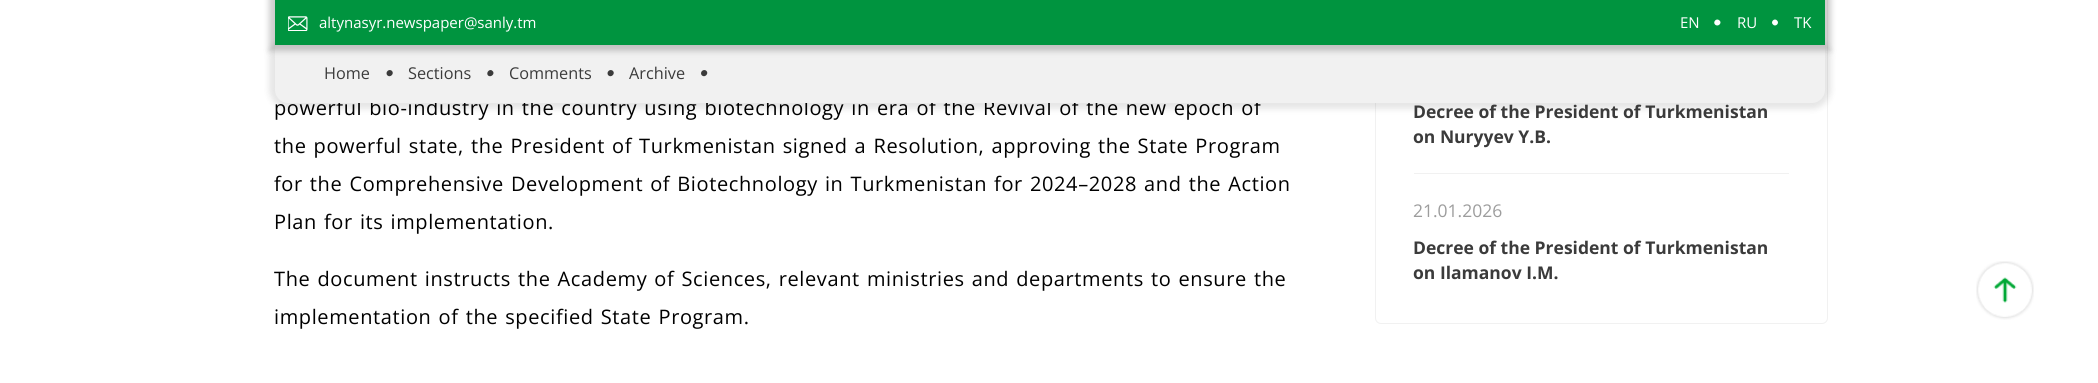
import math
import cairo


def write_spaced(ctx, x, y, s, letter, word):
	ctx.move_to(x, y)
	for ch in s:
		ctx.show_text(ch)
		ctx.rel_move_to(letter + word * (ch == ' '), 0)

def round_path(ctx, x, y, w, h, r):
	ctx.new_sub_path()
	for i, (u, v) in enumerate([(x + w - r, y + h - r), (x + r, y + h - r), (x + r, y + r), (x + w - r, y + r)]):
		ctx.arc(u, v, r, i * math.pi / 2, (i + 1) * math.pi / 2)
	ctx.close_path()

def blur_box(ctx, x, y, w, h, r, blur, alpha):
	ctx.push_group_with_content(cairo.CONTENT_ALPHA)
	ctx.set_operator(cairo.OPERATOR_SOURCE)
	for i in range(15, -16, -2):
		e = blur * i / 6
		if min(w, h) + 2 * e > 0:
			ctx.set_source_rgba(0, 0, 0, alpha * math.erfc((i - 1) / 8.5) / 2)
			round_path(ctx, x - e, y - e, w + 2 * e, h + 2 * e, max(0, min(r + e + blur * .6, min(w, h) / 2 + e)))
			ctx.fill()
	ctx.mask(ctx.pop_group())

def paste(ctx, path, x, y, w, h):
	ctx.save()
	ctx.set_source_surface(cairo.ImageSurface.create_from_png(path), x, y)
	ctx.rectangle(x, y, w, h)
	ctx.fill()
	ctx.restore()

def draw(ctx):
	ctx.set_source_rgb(1, 1, 1)
	ctx.paint()
	round_path(ctx, 1375.5, -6.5, 452, 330, 5.5)
	ctx.set_source_rgb(0.945, 0.945, 0.945)
	ctx.set_line_width(1)
	ctx.stroke()
	ctx.set_source_rgb(0, 0, 0)
	blur_box(ctx, 269, 38, 1562, 71, 19, 3, 0.1)
	ctx.select_font_face('Open Sans')
	ctx.set_font_size(20)
	ctx.set_source_rgb(0, 0, 0)
	write_spaced(ctx, 274, 115, 'powerful bio-industry in the country using biotechnology in era of the Revival of the new epoch of', 0.62, 1.25)
	ctx.set_source_rgb(0.945, 0.945, 0.945)
	ctx.new_path()
	ctx.move_to(275, 44)
	ctx.line_to(1825, 44)
	ctx.line_to(1825, 90)
	ctx.curve_to(1825, 97, 1819, 103, 1812, 103)
	ctx.line_to(288, 103)
	ctx.curve_to(281, 103, 275, 97, 275, 90)
	ctx.close_path()
	ctx.fill()
	ctx.set_source_rgb(0, 0, 0)
	blur_box(ctx, 269, -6, 1562, 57, 0, 3, 0.2)
	ctx.set_source_rgb(0, 0.58, 0.247)
	ctx.rectangle(275, 0, 1550, 45)
	ctx.fill()
	paste(ctx, 'media/1.png', 288, 16, 20, 15)
	ctx.set_font_size(15)
	ctx.set_source_rgb(1, 1, 1)
	ctx.move_to(319, 28)
	ctx.show_text('altynasyr.newspaper@sanly.tm')
	ctx.move_to(1680, 28)
	ctx.show_text('EN')
	ctx.new_path()
	ctx.move_to(1719.5, 20.5)
	ctx.curve_to(1722.5, 23, 1718, 27.5, 1715, 24.5)
	ctx.curve_to(1712.5, 22, 1716.5, 17.5, 1719.5, 20.5)
	ctx.close_path()
	ctx.fill()
	ctx.move_to(1737, 28)
	ctx.show_text('RU')
	ctx.new_path()
	ctx.move_to(1777, 20.5)
	ctx.curve_to(1780, 23, 1775.5, 27.5, 1773, 24.5)
	ctx.curve_to(1770, 22, 1774.5, 17.5, 1777, 20.5)
	ctx.close_path()
	ctx.fill()
	ctx.move_to(1794, 28)
	ctx.show_text('TK')
	ctx.set_font_size(16.25)
	ctx.set_source_rgb(0.231, 0.231, 0.231)
	ctx.move_to(324, 79)
	ctx.show_text('Home')
	ctx.new_path()
	ctx.move_to(392, 71)
	ctx.curve_to(394.5, 73.5, 390.5, 78, 387.5, 75.5)
	ctx.curve_to(384.5, 72.5, 389, 68, 392, 71)
	ctx.close_path()
	ctx.fill()
	ctx.move_to(408, 79)
	ctx.show_text('Sections')
	ctx.new_path()
	ctx.move_to(492.5, 71)
	ctx.curve_to(495.5, 73.5, 491, 78, 488, 75.5)
	ctx.curve_to(485.5, 72.5, 490, 68, 492.5, 71)
	ctx.close_path()
	ctx.fill()
	ctx.move_to(509, 79)
	ctx.show_text('Comments')
	ctx.new_path()
	ctx.move_to(613, 71)
	ctx.curve_to(615.5, 73.5, 611.5, 78, 608.5, 75.5)
	ctx.curve_to(605.5, 72.5, 610, 68, 613, 71)
	ctx.close_path()
	ctx.fill()
	ctx.move_to(629, 79)
	ctx.show_text('Archive')
	ctx.new_path()
	ctx.move_to(706.5, 71)
	ctx.curve_to(709, 73.5, 705, 78, 702, 75.5)
	ctx.curve_to(699, 72.5, 703.5, 68, 706.5, 71)
	ctx.close_path()
	ctx.fill()
	ctx.set_font_size(20)
	ctx.set_source_rgb(0, 0, 0)
	for x, y, s in [
		(274, 153, 'the powerful state, the President of Turkmenistan signed a Resolution, approving the State Program'),
		(274, 191, 'for the Comprehensive Development of Biotechnology in Turkmenistan for 2024–2028 and the Action'),
		(274, 229, 'Plan for its implementation.'),
		(274, 286, 'The document instructs the Academy of Sciences, relevant ministries and departments to ensure the'),
		(274, 324, 'implementation of the specified State Program.'),
	]:
		write_spaced(ctx, x, y, s, 0.62, 1.25)
	ctx.select_font_face('Open Sans', cairo.FONT_SLANT_NORMAL, cairo.FONT_WEIGHT_BOLD)
	ctx.set_font_size(17.5)
	ctx.set_source_rgb(0.231, 0.231, 0.231)
	ctx.move_to(1413, 118)
	ctx.show_text('Decree of the President of Turkmenistan')
	ctx.move_to(1413, 143)
	ctx.show_text('on Nuryyev Y.B.')
	ctx.set_source_rgb(0.945, 0.945, 0.945)
	ctx.rectangle(1414, 173, 375, 1)
	ctx.fill()
	ctx.select_font_face('Open Sans')
	ctx.set_source_rgb(0.616, 0.616, 0.616)
	ctx.move_to(1413, 217)
	ctx.show_text('21.01.2026')
	ctx.select_font_face('Open Sans', cairo.FONT_SLANT_NORMAL, cairo.FONT_WEIGHT_BOLD)
	ctx.set_source_rgb(0.231, 0.231, 0.231)
	ctx.move_to(1413, 254)
	ctx.show_text('Decree of the President of Turkmenistan')
	ctx.move_to(1413, 279)
	ctx.show_text('on Ilamanov I.M.')
	paste(ctx, 'media/2.png', 1976, 261, 58, 59)


surface = cairo.ImageSurface(cairo.FORMAT_RGB24, 2098, 383)
ctx = cairo.Context(surface)
options = cairo.FontOptions()
options.set_hint_metrics(cairo.HINT_METRICS_OFF)
options.set_hint_style(cairo.HINT_STYLE_NONE)
ctx.set_font_options(options)
ctx.set_miter_limit(4)
draw(ctx)
surface.write_to_png('image.png')
